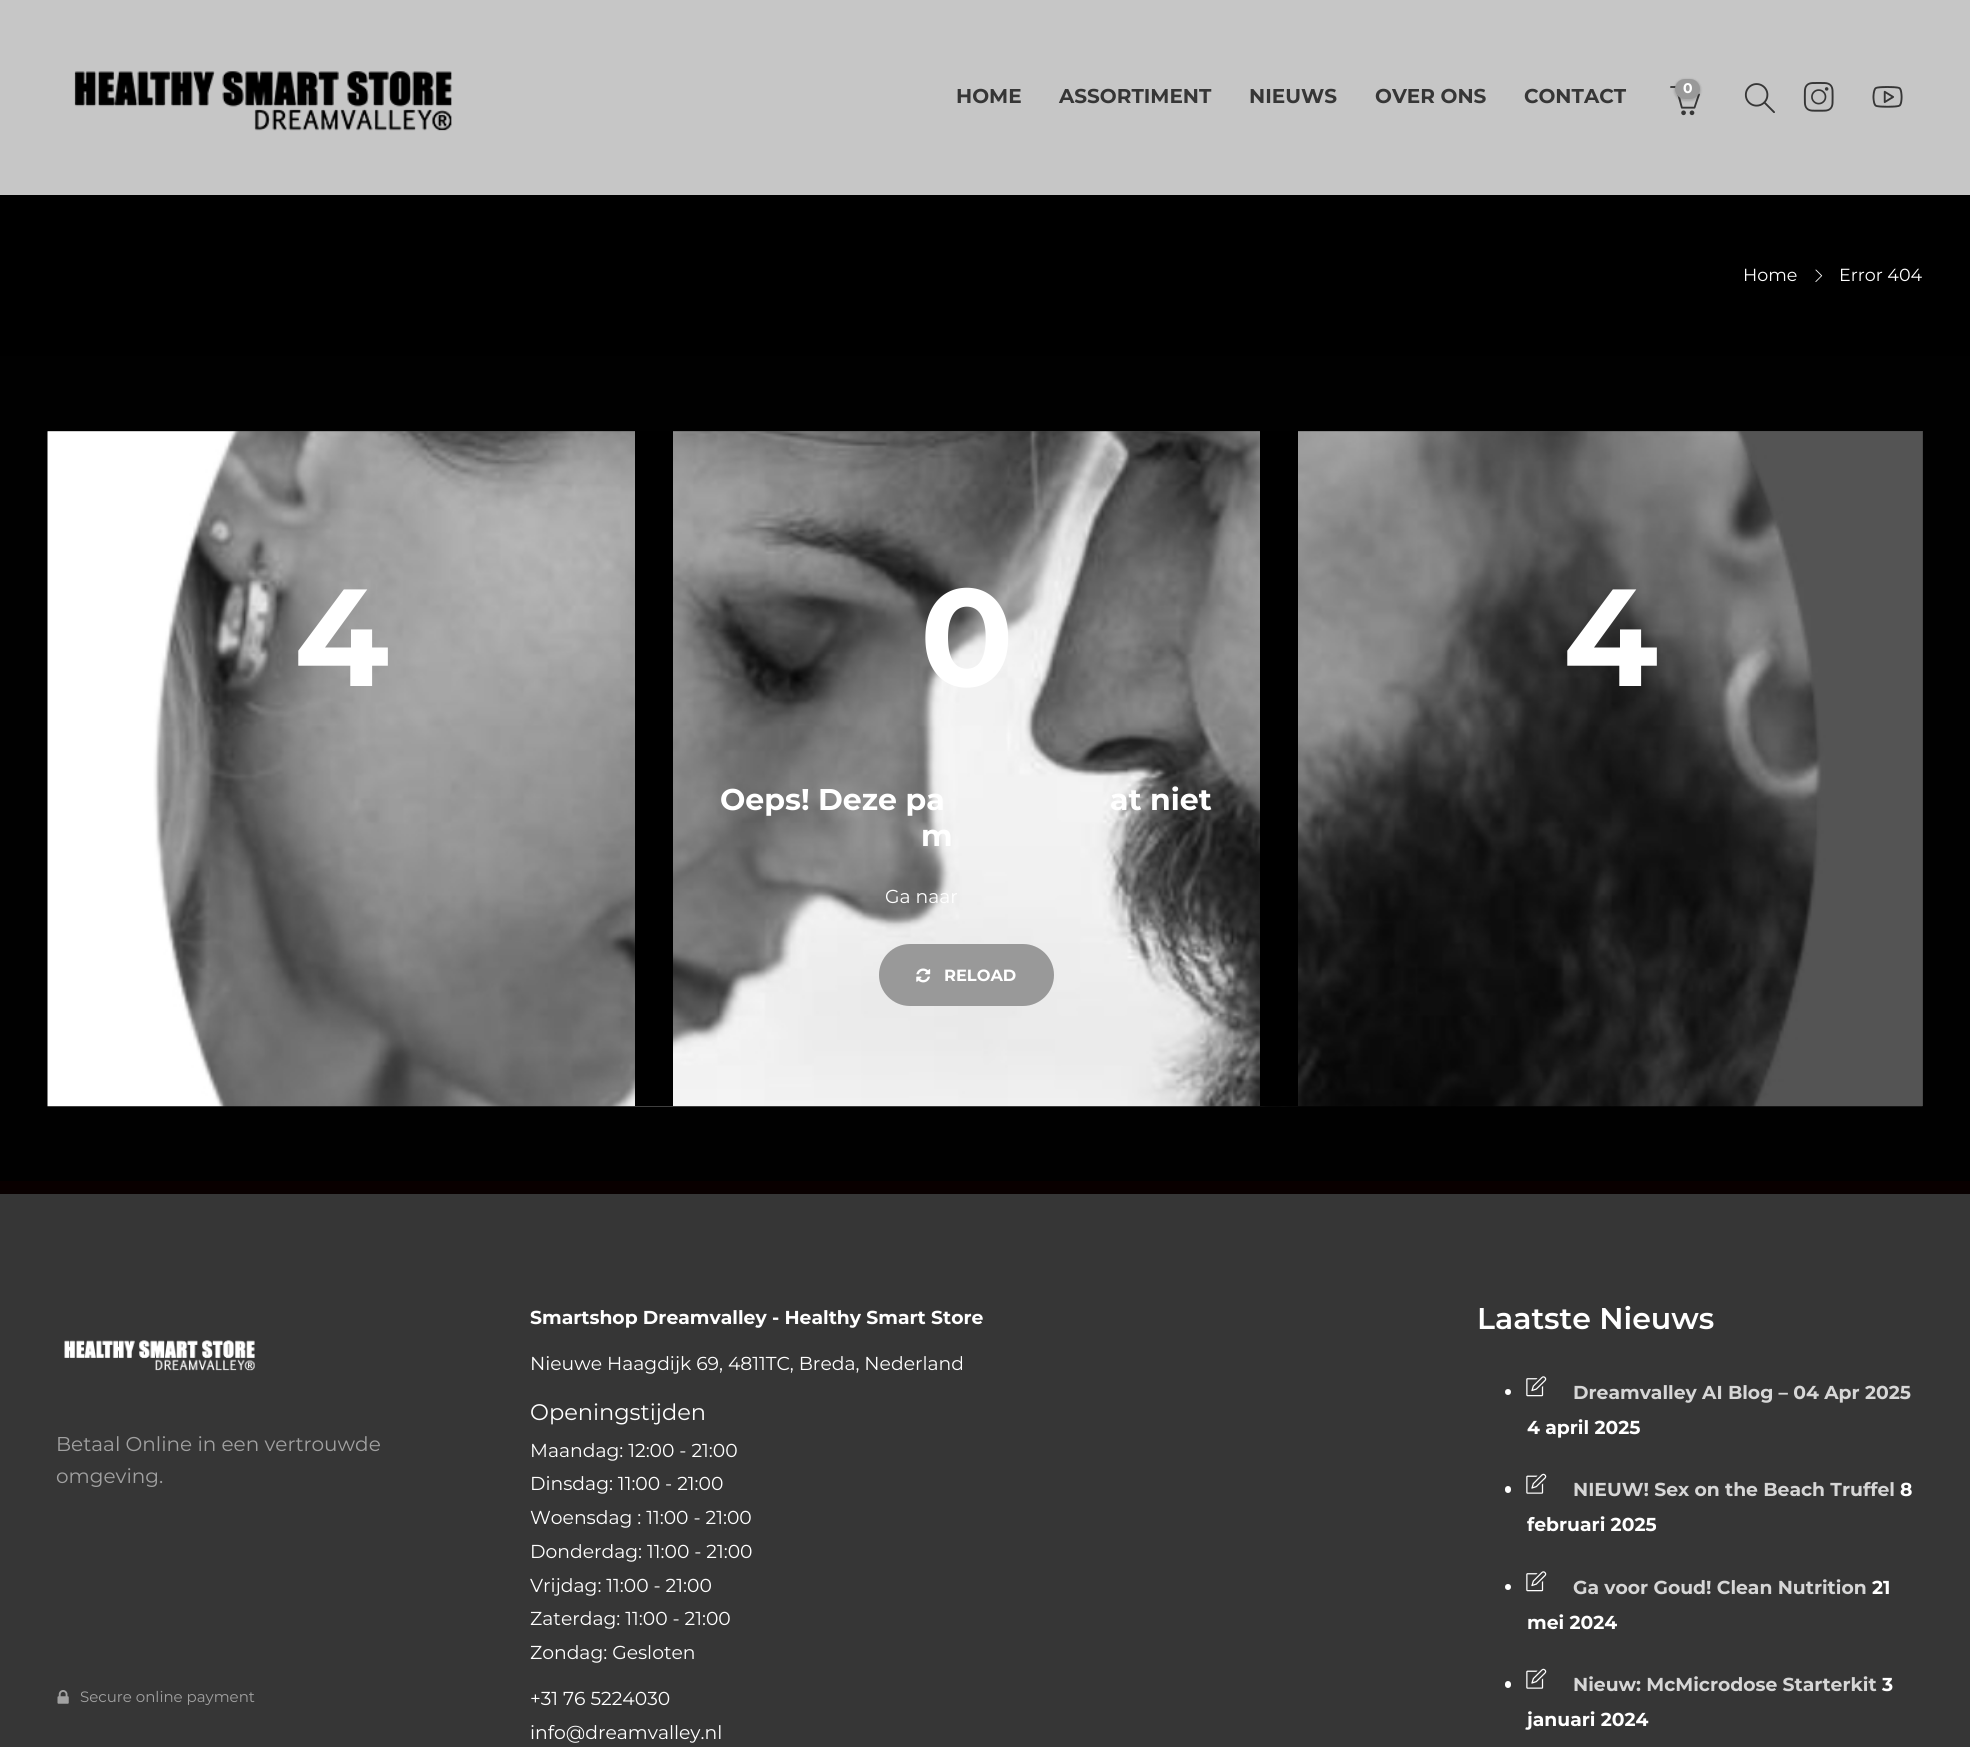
import math
import cairo


def round_path(ctx, x, y, w, h, r):
	ctx.new_sub_path()
	for i, (u, v) in enumerate([(x + w - r, y + h - r), (x + r, y + h - r), (x + r, y + r), (x + w - r, y + r)]):
		ctx.arc(u, v, r, i * math.pi / 2, (i + 1) * math.pi / 2)
	ctx.close_path()

def blur_box(ctx, x, y, w, h, r, blur, alpha):
	ctx.push_group_with_content(cairo.CONTENT_ALPHA)
	ctx.set_operator(cairo.OPERATOR_SOURCE)
	for i in range(15, -16, -2):
		e = blur * i / 6
		if min(w, h) + 2 * e > 0:
			ctx.set_source_rgba(0, 0, 0, alpha * math.erfc((i - 1) / 8.5) / 2)
			round_path(ctx, x - e, y - e, w + 2 * e, h + 2 * e, max(0, min(r + e + blur * .6, min(w, h) / 2 + e)))
			ctx.fill()
	ctx.mask(ctx.pop_group())

def paste(ctx, path, x, y, w, h):
	ctx.save()
	ctx.set_source_surface(cairo.ImageSurface.create_from_png(path), x, y)
	ctx.rectangle(x, y, w, h)
	ctx.fill()
	ctx.restore()

def draw(ctx):
	ctx.set_source_rgb(0.039, 0, 0)
	ctx.paint()
	ctx.set_source_rgb(0.776, 0.776, 0.776)
	ctx.rectangle(0, 0, 1970, 195)
	ctx.fill()
	paste(ctx, 'media/1.png', 74, 71, 378, 60)
	ctx.select_font_face('Montserrat', cairo.FONT_SLANT_NORMAL, cairo.FONT_WEIGHT_BOLD)
	ctx.set_font_size(20)
	ctx.set_source_rgb(0.212, 0.212, 0.212)
	for x, y, s in [
		(956, 103, 'HOME'),
		(1059, 103, 'ASSORTIMENT'),
		(1249, 103, 'NIEUWS'),
		(1375, 103, 'OVER ONS'),
		(1524, 103, 'CONTACT'),
	]:
		ctx.move_to(x, y)
		ctx.show_text(s)
	paste(ctx, 'media/2.png', 1670, 86, 30, 30)
	ctx.set_source_rgb(0, 0, 0)
	blur_box(ctx, 1674, 79, 27, 22, 11, 1, 0.15)
	ctx.set_source_rgb(0.6, 0.6, 0.6)
	round_path(ctx, 1675, 79, 25, 20, 10)
	ctx.fill()
	ctx.set_font_size(14)
	ctx.set_source_rgb(1, 1, 1)
	ctx.move_to(1683, 93)
	ctx.show_text('0')
	paste(ctx, 'media/3.png', 1744, 83, 31, 30)
	paste(ctx, 'media/4.png', 1803, 82, 31, 30)
	paste(ctx, 'media/5.png', 1872, 86, 31, 22)
	ctx.set_source_rgb(0, 0, 0)
	ctx.rectangle(0, 195, 1970, 161)
	ctx.fill()
	ctx.select_font_face('Montserrat')
	ctx.set_font_size(17.5)
	ctx.set_source_rgb(1, 1, 1)
	ctx.move_to(1743, 281)
	ctx.show_text('Home')
	paste(ctx, 'media/6.png', 1815, 269, 8, 13)
	ctx.move_to(1839, 281)
	ctx.show_text('Error 404')
	ctx.set_source_rgb(0.004, 0.004, 0.004)
	ctx.rectangle(0, 356, 1970, 825)
	ctx.fill()
	ctx.set_source_rgb(0.247, 0.247, 0.247)
	ctx.rectangle(48, 431, 1875, 675)
	ctx.fill()
	paste(ctx, 'media/7.png', 47, 431, 1876, 676)
	ctx.set_source_rgb(0, 0, 0)
	ctx.rectangle(635, 431, 38, 675)
	ctx.fill()
	ctx.select_font_face('Montserrat', cairo.FONT_SLANT_NORMAL, cairo.FONT_WEIGHT_BOLD)
	ctx.set_font_size(138)
	ctx.set_source_rgb(1, 1, 1)
	ctx.move_to(294, 686)
	ctx.show_text('4')
	ctx.set_source_rgb(0, 0, 0)
	ctx.rectangle(1260, 431, 38, 675)
	ctx.fill()
	ctx.set_source_rgb(1, 1, 1)
	ctx.move_to(920, 686)
	ctx.show_text('0')
	ctx.set_font_size(30)
	for x, y, s in [
		(720, 810, 'Oeps! Deze pa'),
		(1110, 810, 'at niet'),
		(921, 846, 'm'),
	]:
		ctx.move_to(x, y)
		ctx.show_text(s)
	ctx.select_font_face('Montserrat')
	ctx.set_font_size(18.75)
	ctx.move_to(885, 903)
	ctx.show_text('Ga naar')
	ctx.set_source_rgb(0.6, 0.6, 0.6)
	round_path(ctx, 879, 944, 175, 62, 31)
	ctx.fill()
	paste(ctx, 'media/8.png', 916, 968, 15, 15)
	ctx.select_font_face('Montserrat', cairo.FONT_SLANT_NORMAL, cairo.FONT_WEIGHT_BOLD)
	ctx.set_font_size(16.25)
	ctx.set_source_rgb(1, 1, 1)
	ctx.move_to(944, 981)
	ctx.show_text('RELOAD')
	ctx.set_font_size(138)
	ctx.move_to(1563, 686)
	ctx.show_text('4')
	ctx.set_source_rgb(0.212, 0.212, 0.212)
	ctx.rectangle(0, 1194, 1970, 553)
	ctx.fill()
	paste(ctx, 'media/9.png', 64, 1340, 191, 31)
	ctx.select_font_face('Montserrat')
	ctx.set_font_size(20)
	ctx.set_source_rgb(0.631, 0.631, 0.631)
	ctx.move_to(56, 1451)
	ctx.show_text('Betaal Online in een vertrouwde')
	ctx.move_to(56, 1483)
	ctx.show_text('omgeving.')
	paste(ctx, 'media/10.png', 57, 1690, 12, 14)
	ctx.set_font_size(15)
	ctx.move_to(80, 1702)
	ctx.show_text('Secure online payment')
	ctx.select_font_face('Montserrat', cairo.FONT_SLANT_NORMAL, cairo.FONT_WEIGHT_BOLD)
	ctx.set_font_size(18.75)
	ctx.set_source_rgb(1, 1, 1)
	ctx.move_to(530, 1324)
	ctx.show_text('Smartshop Dreamvalley - Healthy Smart Store')
	ctx.select_font_face('Montserrat')
	ctx.move_to(530, 1370)
	ctx.show_text('Nieuwe Haagdijk 69, 4811TC, Breda, Nederland')
	ctx.set_font_size(22.5)
	ctx.move_to(530, 1420)
	ctx.show_text('Openingstijden')
	ctx.set_font_size(18.75)
	for x, y, s in [
		(530, 1457, 'Maandag: 12:00 - 21:00'),
		(530, 1490, 'Dinsdag: 11:00 - 21:00'),
		(530, 1524, 'Woensdag : 11:00 - 21:00'),
		(530, 1558, 'Donderdag: 11:00 - 21:00'),
		(530, 1592, 'Vrijdag: 11:00 - 21:00'),
		(530, 1625, 'Zaterdag: 11:00 - 21:00'),
		(530, 1659, 'Zondag: Gesloten'),
		(530, 1705, '+31 76 5224030'),
		(530, 1739, 'info@dreamvalley.nl'),
	]:
		ctx.move_to(x, y)
		ctx.show_text(s)
	ctx.select_font_face('Montserrat SemiBold')
	ctx.set_font_size(30)
	ctx.move_to(1477, 1329)
	ctx.show_text('Laatste Nieuws')
	ctx.new_path()
	ctx.arc(1508, 1392, 3, 0, 2 * math.pi)
	ctx.fill()
	paste(ctx, 'media/11.png', 1526, 1376, 21, 21)
	ctx.select_font_face('Montserrat', cairo.FONT_SLANT_NORMAL, cairo.FONT_WEIGHT_BOLD)
	ctx.set_font_size(18.75)
	ctx.set_source_rgb(0.839, 0.839, 0.839)
	ctx.move_to(1573, 1399)
	ctx.show_text('Dreamvalley AI Blog – 04 Apr 2025')
	ctx.set_source_rgb(1, 1, 1)
	ctx.move_to(1527, 1434)
	ctx.show_text('4 april 2025')
	round_path(ctx, 1505, 1486, 6, 7, 3)
	ctx.fill()
	paste(ctx, 'media/12.png', 1526, 1473, 21, 21)
	ctx.set_source_rgb(0.839, 0.839, 0.839)
	ctx.move_to(1573, 1496)
	ctx.show_text('NIEUW! Sex on the Beach Truffel')
	ctx.set_source_rgb(1, 1, 1)
	ctx.move_to(1900, 1496)
	ctx.show_text('8')
	ctx.move_to(1527, 1531)
	ctx.show_text('februari 2025')
	ctx.new_path()
	ctx.arc(1508, 1587, 3, 0, 2 * math.pi)
	ctx.fill()
	paste(ctx, 'media/11.png', 1526, 1571, 21, 21)
	ctx.set_source_rgb(0.839, 0.839, 0.839)
	ctx.move_to(1573, 1594)
	ctx.show_text('Ga voor Goud! Clean Nutrition')
	ctx.set_source_rgb(1, 1, 1)
	ctx.move_to(1872, 1594)
	ctx.show_text('21')
	ctx.move_to(1527, 1629)
	ctx.show_text('mei 2024')
	round_path(ctx, 1505, 1681, 6, 7, 3)
	ctx.fill()
	paste(ctx, 'media/12.png', 1526, 1668, 21, 21)
	ctx.set_source_rgb(0.839, 0.839, 0.839)
	ctx.move_to(1573, 1691)
	ctx.show_text('Nieuw: McMicrodose Starterkit')
	ctx.set_source_rgb(1, 1, 1)
	ctx.move_to(1882, 1691)
	ctx.show_text('3')
	ctx.move_to(1527, 1726)
	ctx.show_text('januari 2024')


surface = cairo.ImageSurface(cairo.FORMAT_RGB24, 1970, 1747)
ctx = cairo.Context(surface)
options = cairo.FontOptions()
options.set_hint_metrics(cairo.HINT_METRICS_OFF)
options.set_hint_style(cairo.HINT_STYLE_NONE)
ctx.set_font_options(options)
ctx.set_miter_limit(4)
draw(ctx)
surface.write_to_png('image.png')
